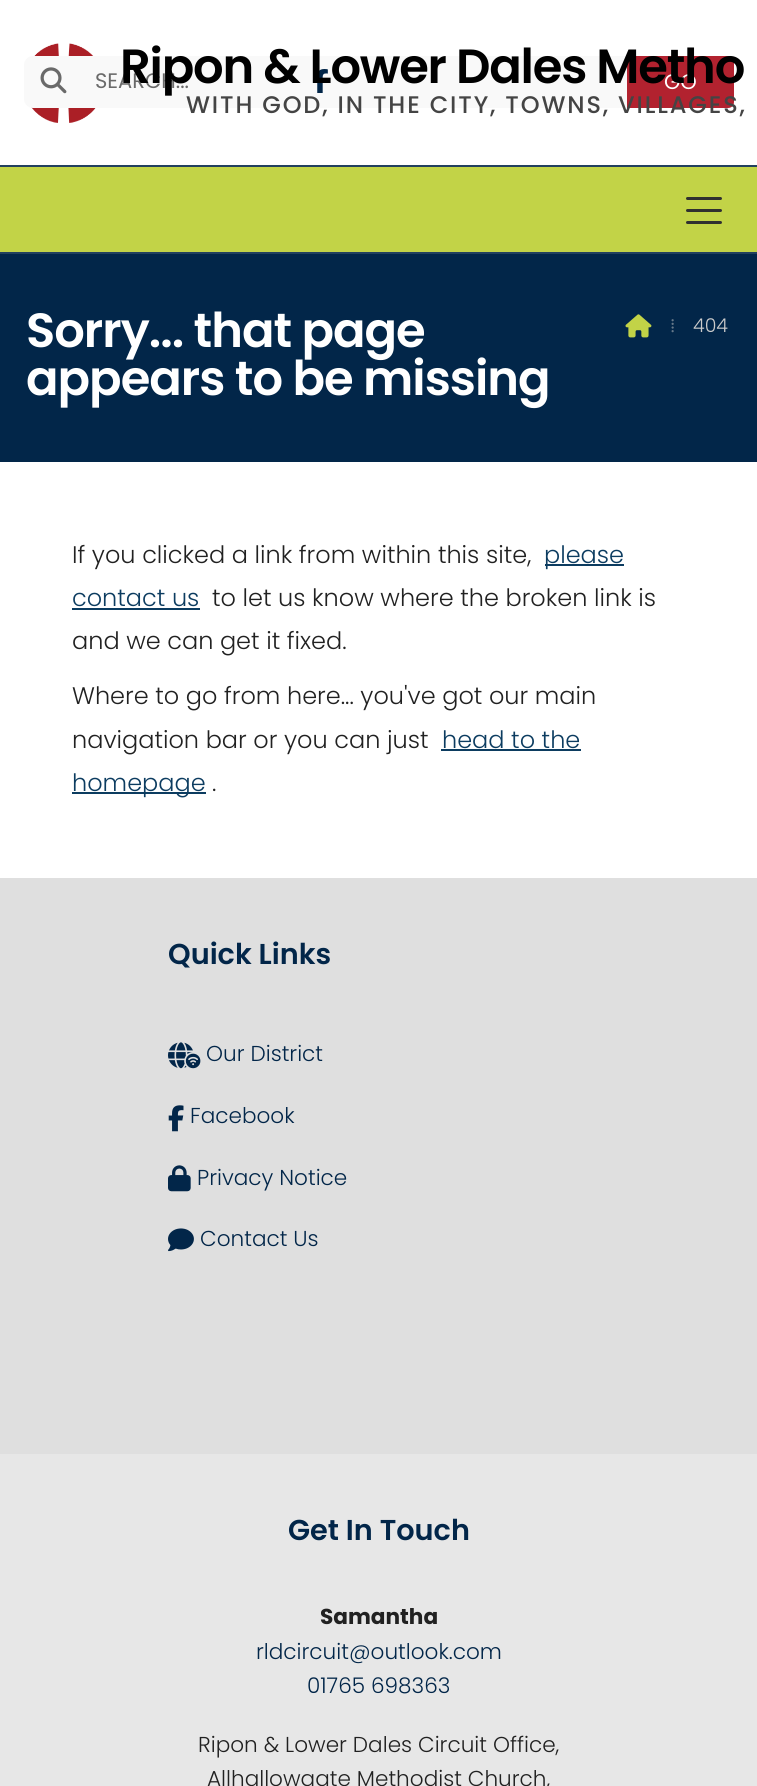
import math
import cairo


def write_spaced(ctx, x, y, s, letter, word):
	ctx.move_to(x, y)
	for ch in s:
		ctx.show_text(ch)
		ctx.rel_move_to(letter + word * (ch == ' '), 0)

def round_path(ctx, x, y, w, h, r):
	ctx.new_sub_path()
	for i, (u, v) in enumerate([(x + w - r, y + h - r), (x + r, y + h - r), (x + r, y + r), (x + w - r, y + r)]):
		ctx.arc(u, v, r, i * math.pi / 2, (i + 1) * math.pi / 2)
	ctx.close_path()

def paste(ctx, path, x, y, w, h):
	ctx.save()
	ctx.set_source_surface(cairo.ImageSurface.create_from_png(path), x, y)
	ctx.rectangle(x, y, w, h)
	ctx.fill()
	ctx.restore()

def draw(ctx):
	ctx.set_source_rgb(1, 1, 1)
	ctx.paint()
	paste(ctx, 'media/1.png', 31, 43, 65, 80)
	ctx.set_source_rgb(0.973, 0.973, 0.973)
	round_path(ctx, 24, 56, 710, 52, 9)
	ctx.fill()
	paste(ctx, 'media/2.png', 314, 69, 14, 24)
	ctx.select_font_face('Poppins')
	ctx.set_font_size(21)
	ctx.set_source_rgb(0.416, 0.416, 0.416)
	ctx.move_to(95, 88)
	ctx.show_text('SEARCH...')
	ctx.set_source_rgb(0.698, 0.133, 0.184)
	ctx.new_path()
	ctx.move_to(627, 56)
	ctx.line_to(728, 56)
	ctx.curve_to(731.5, 56, 734, 58.5, 734, 62)
	ctx.line_to(734, 102)
	ctx.curve_to(734, 105.5, 731.5, 108, 728, 108)
	ctx.line_to(627, 108)
	ctx.close_path()
	ctx.fill()
	ctx.set_source_rgb(1, 1, 1)
	ctx.move_to(664, 89)
	ctx.show_text('GO')
	ctx.select_font_face('Poppins SemiBold')
	ctx.set_font_size(48)
	ctx.set_source_rgb(0, 0, 0)
	write_spaced(ctx, 120, 83, 'Ripon & Lower Dales Metho', -1.2, 0)
	paste(ctx, 'media/3.png', 40, 67, 27, 27)
	ctx.select_font_face('Poppins Medium')
	ctx.set_font_size(24)
	ctx.set_source_rgb(0.267, 0.267, 0.267)
	write_spaced(ctx, 186, 113, 'WITH GOD, IN THE CITY, TOWNS, VILLAGES,', 1.85, 0)
	ctx.set_source_rgb(0.761, 0.827, 0.278)
	ctx.rectangle(0, 167, 757, 85)
	ctx.fill()
	ctx.set_source_rgb(0.133, 0.251, 0.369)
	ctx.rectangle(0, 165, 757, 2)
	ctx.rectangle(0, 252, 757, 2)
	ctx.fill()
	ctx.set_source_rgb(0.188, 0.188, 0.188)
	round_path(ctx, 686, 197, 36, 3, 1.5)
	ctx.fill()
	round_path(ctx, 686, 209, 36, 3, 1.5)
	ctx.fill()
	round_path(ctx, 686, 221, 36, 3, 1.5)
	ctx.fill()
	ctx.set_source_rgb(0.008, 0.149, 0.286)
	ctx.rectangle(0, 254, 757, 208)
	ctx.fill()
	ctx.select_font_face('Poppins SemiBold')
	ctx.set_font_size(48)
	ctx.set_source_rgb(1, 1, 1)
	write_spaced(ctx, 26, 347, 'Sorry... that page', -1, 0)
	write_spaced(ctx, 26, 395, 'appears to be missing', -1, 0)
	paste(ctx, 'media/4.png', 625, 314, 27, 24)
	ctx.select_font_face('Liberation Serif')
	ctx.set_font_size(19)
	ctx.set_source_rgb(0.404, 0.475, 0.541)
	ctx.move_to(670, 332)
	ctx.show_text('⁞')
	ctx.select_font_face('Poppins Light')
	ctx.set_source_rgb(0.796, 0.796, 0.796)
	ctx.move_to(693, 332)
	ctx.show_text('404')
	ctx.set_font_size(24)
	ctx.set_source_rgb(0.129, 0.129, 0.129)
	ctx.move_to(72, 563)
	ctx.show_text('If you clicked a link from within this site,')
	ctx.set_source_rgb(0.047, 0.235, 0.376)
	ctx.rectangle(545, 564, 79, 2)
	ctx.fill()
	ctx.move_to(544, 563)
	ctx.show_text('please')
	ctx.move_to(72, 606)
	ctx.show_text('contact us')
	ctx.rectangle(72, 608, 128, 2)
	ctx.fill()
	ctx.set_source_rgb(0.129, 0.129, 0.129)
	for x, y, s in [
		(212, 606, 'to let us know where the broken link is'),
		(72, 649, 'and we can get it fixed.'),
		(72, 704, 'Where to go from here... you\'ve got our main'),
		(72, 748, 'navigation bar or you can just'),
	]:
		ctx.move_to(x, y)
		ctx.show_text(s)
	ctx.set_source_rgb(0.047, 0.235, 0.376)
	ctx.move_to(442, 748)
	ctx.show_text('head to the')
	ctx.rectangle(441, 749, 140, 2)
	ctx.fill()
	ctx.rectangle(72, 792, 134, 2)
	ctx.fill()
	ctx.move_to(72, 791)
	ctx.show_text('homepage')
	ctx.set_source_rgb(0.129, 0.129, 0.129)
	ctx.move_to(212, 791)
	ctx.show_text('.')
	ctx.set_source_rgb(0.875, 0.875, 0.875)
	ctx.rectangle(0, 878, 757, 576)
	ctx.fill()
	ctx.select_font_face('Poppins SemiBold')
	ctx.set_font_size(28.75)
	ctx.set_source_rgb(0.008, 0.149, 0.286)
	ctx.move_to(168, 964)
	ctx.show_text('Quick Links')
	paste(ctx, 'media/5.png', 168, 1042, 33, 27)
	ctx.select_font_face('Poppins Light')
	ctx.set_font_size(21.6)
	ctx.move_to(206, 1061)
	ctx.show_text('Our District')
	paste(ctx, 'media/6.png', 168, 1105, 16, 27)
	ctx.move_to(190, 1123)
	ctx.show_text('Facebook')
	paste(ctx, 'media/7.png', 168, 1165, 23, 27)
	ctx.move_to(197, 1185)
	ctx.show_text('Privacy Notice')
	paste(ctx, 'media/8.png', 168, 1228, 26, 24)
	ctx.move_to(200, 1246)
	ctx.show_text('Contact Us')
	ctx.set_source_rgb(0.906, 0.906, 0.906)
	ctx.rectangle(0, 1454, 757, 332)
	ctx.fill()
	ctx.select_font_face('Poppins SemiBold')
	ctx.set_font_size(28.75)
	ctx.set_source_rgb(0.008, 0.149, 0.286)
	ctx.move_to(288, 1540)
	ctx.show_text('Get In Touch')
	ctx.select_font_face('Poppins', cairo.FONT_SLANT_NORMAL, cairo.FONT_WEIGHT_BOLD)
	ctx.set_font_size(21.6)
	ctx.set_source_rgb(0.129, 0.129, 0.129)
	ctx.move_to(320, 1624)
	ctx.show_text('Samantha')
	ctx.select_font_face('Poppins Light')
	ctx.set_source_rgb(0.008, 0.149, 0.286)
	ctx.move_to(256, 1659)
	ctx.show_text('rldcircuit@outlook.com')
	ctx.move_to(307, 1693)
	ctx.show_text('01765 698363')
	ctx.set_source_rgb(0.129, 0.129, 0.129)
	ctx.move_to(198, 1752)
	ctx.show_text('Ripon & Lower Dales Circuit Office,')
	ctx.move_to(207, 1786)
	ctx.show_text('Allhallowgate Methodist Church,')


surface = cairo.ImageSurface(cairo.FORMAT_RGB24, 757, 1786)
ctx = cairo.Context(surface)
options = cairo.FontOptions()
options.set_hint_metrics(cairo.HINT_METRICS_OFF)
options.set_hint_style(cairo.HINT_STYLE_NONE)
ctx.set_font_options(options)
ctx.set_miter_limit(4)
draw(ctx)
surface.write_to_png('image.png')
